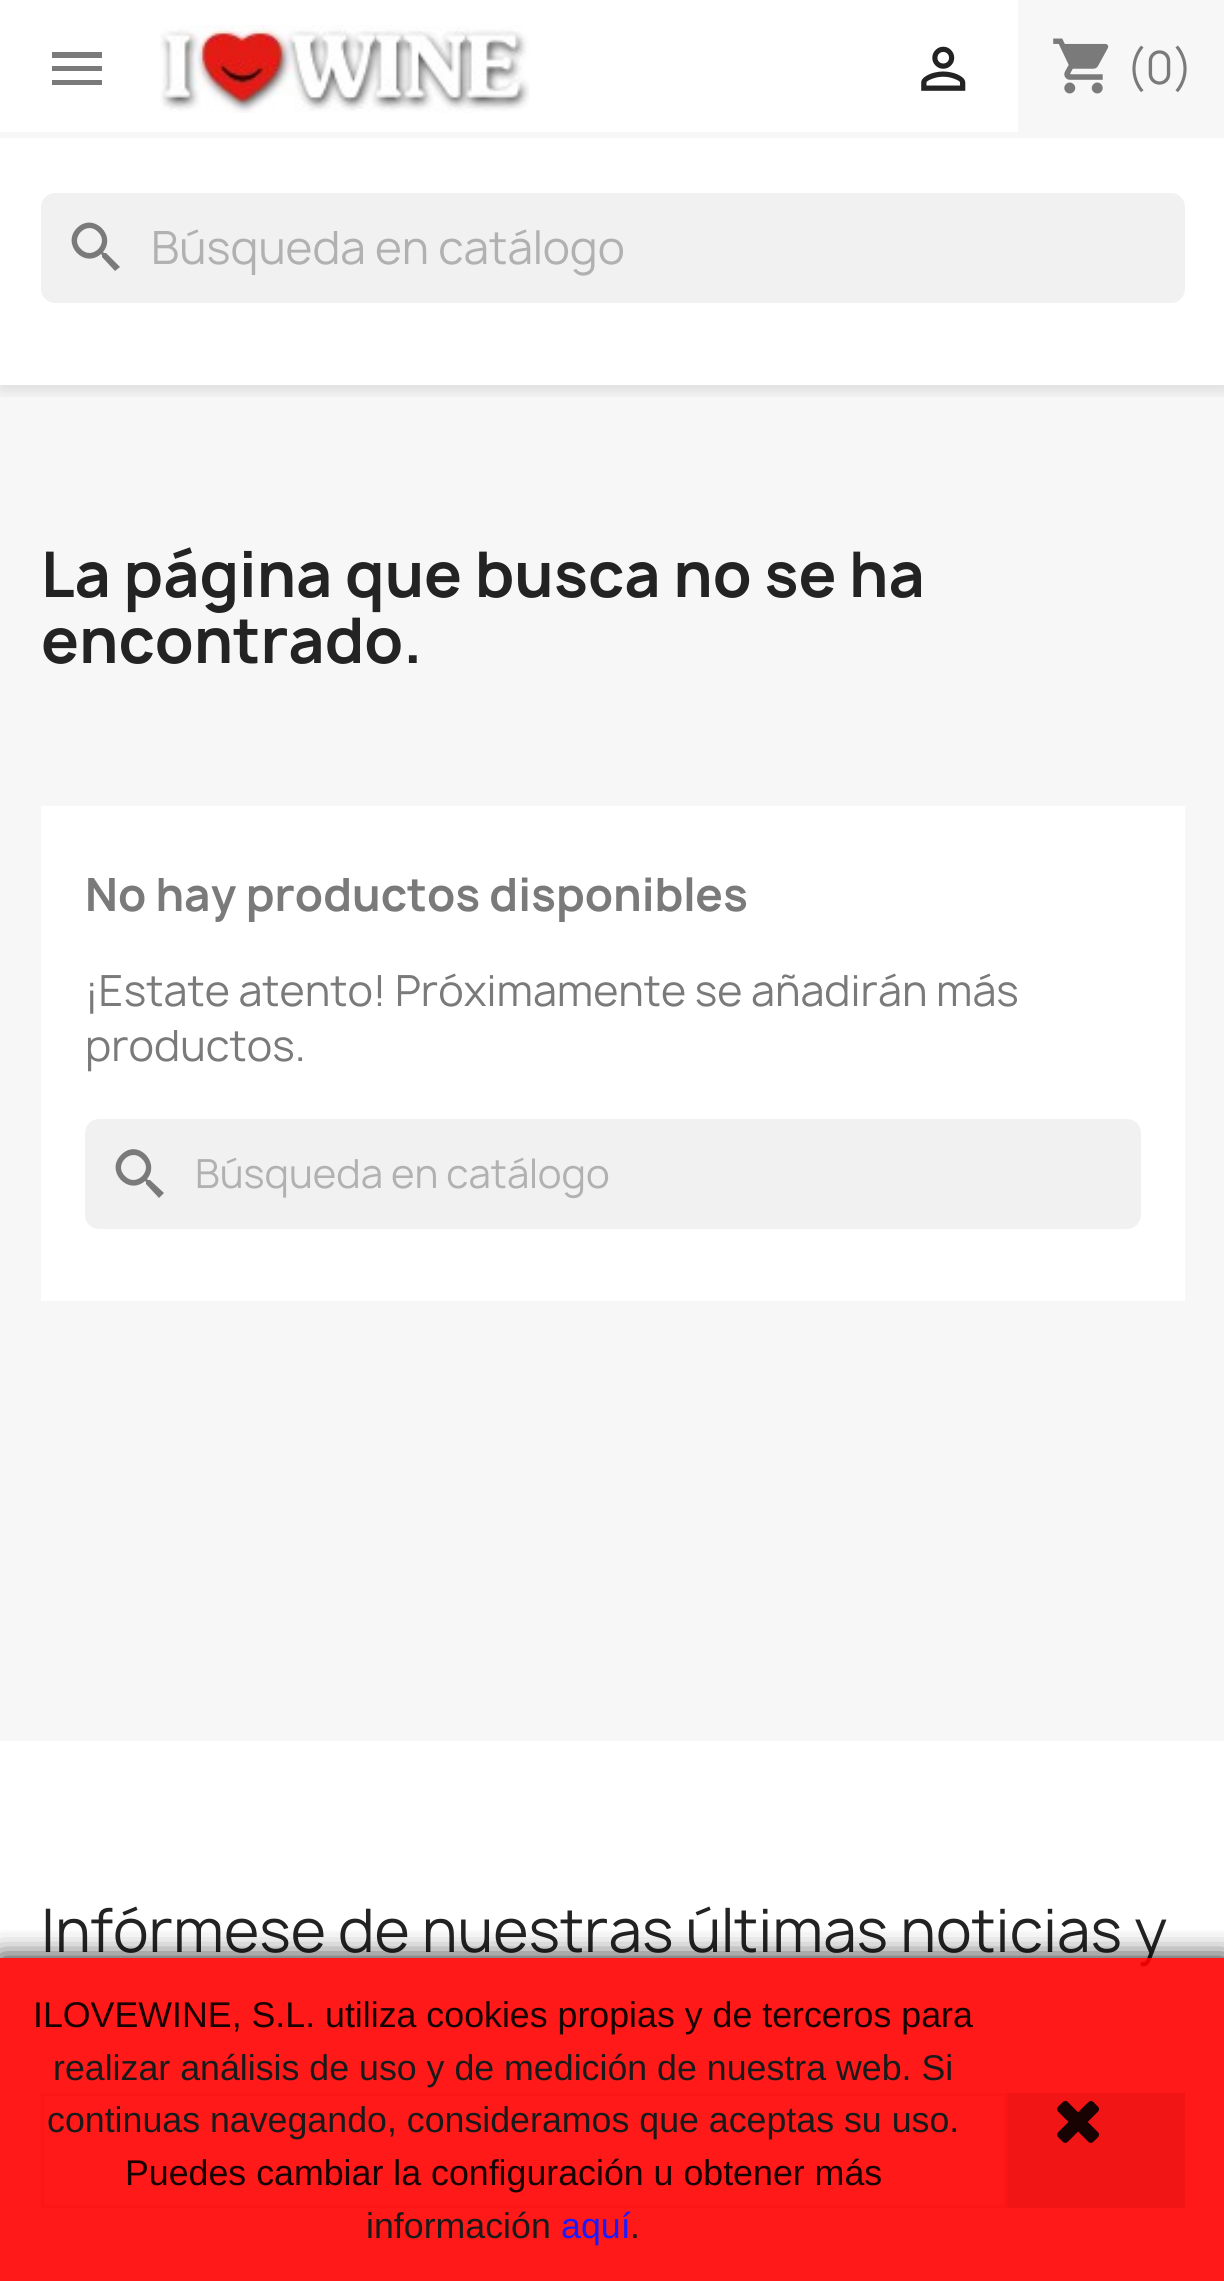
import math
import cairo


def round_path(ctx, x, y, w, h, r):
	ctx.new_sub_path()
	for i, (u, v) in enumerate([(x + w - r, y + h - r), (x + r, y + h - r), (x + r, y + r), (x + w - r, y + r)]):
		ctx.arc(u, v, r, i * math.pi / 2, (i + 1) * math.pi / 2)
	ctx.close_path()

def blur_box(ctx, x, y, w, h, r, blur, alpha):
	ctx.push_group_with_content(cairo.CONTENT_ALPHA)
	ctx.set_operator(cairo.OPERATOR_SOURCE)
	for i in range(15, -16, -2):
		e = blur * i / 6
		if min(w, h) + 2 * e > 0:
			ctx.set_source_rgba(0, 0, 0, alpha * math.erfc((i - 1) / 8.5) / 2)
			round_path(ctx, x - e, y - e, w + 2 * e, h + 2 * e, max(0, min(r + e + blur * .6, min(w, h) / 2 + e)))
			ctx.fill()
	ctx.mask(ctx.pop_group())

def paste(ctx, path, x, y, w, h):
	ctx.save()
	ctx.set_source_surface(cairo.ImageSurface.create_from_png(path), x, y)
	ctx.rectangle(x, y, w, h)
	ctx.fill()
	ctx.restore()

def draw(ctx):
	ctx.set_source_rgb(1, 1, 1)
	ctx.paint()
	ctx.set_source_rgb(0.965, 0.965, 0.965)
	ctx.rectangle(0, 385, 1224, 1356)
	ctx.fill()
	ctx.save()
	ctx.rectangle(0, 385, 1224, 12)
	ctx.clip()
	ctx.set_source_rgb(0, 0, 0)
	blur_box(ctx, 0, 6, 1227, 385, 0, 7, 0.11)
	ctx.restore()
	ctx.rectangle(0, 132, 1224, 6)
	ctx.fill()
	ctx.set_source_rgb(0.478, 0.478, 0.478)
	ctx.new_path()
	ctx.move_to(52, 52)
	ctx.line_to(102, 52)
	ctx.line_to(102, 58)
	ctx.line_to(52, 58)
	ctx.close_path()
	ctx.move_to(52, 71)
	ctx.line_to(52, 66)
	ctx.line_to(102, 66)
	ctx.line_to(102, 71)
	ctx.close_path()
	ctx.move_to(52, 85)
	ctx.line_to(52, 80)
	ctx.line_to(102, 80)
	ctx.line_to(102, 85)
	ctx.close_path()
	ctx.fill()
	paste(ctx, 'media/1.png', 160, 25, 370, 88)
	paste(ctx, 'media/2.png', 921, 46, 45, 45)
	ctx.set_source_rgb(0.965, 0.965, 0.965)
	ctx.rectangle(1018, 0, 206, 132)
	ctx.fill()
	paste(ctx, 'media/3.png', 1053, 38, 56, 56)
	ctx.select_font_face('Manrope')
	ctx.set_font_size(44)
	ctx.set_source_rgb(0.478, 0.478, 0.478)
	ctx.move_to(1126, 84)
	ctx.show_text('(0)')
	ctx.set_source_rgb(0.945, 0.945, 0.945)
	round_path(ctx, 41, 193, 1144, 110, 14)
	ctx.fill()
	ctx.set_source_rgb(0.478, 0.478, 0.478)
	ctx.new_path()
	ctx.move_to(81, 249)
	ctx.curve_to(92, 261, 110, 243, 98, 232)
	ctx.curve_to(87, 220, 69, 238, 81, 249)
	ctx.close_path()
	ctx.move_to(106, 253)
	ctx.line_to(120, 267)
	ctx.line_to(115, 271)
	ctx.line_to(102, 257)
	ctx.line_to(102, 255)
	ctx.line_to(101, 254)
	ctx.curve_to(84, 269, 61, 244, 77, 228)
	ctx.curve_to(93, 212, 117, 235, 103, 252)
	ctx.line_to(104, 253)
	ctx.close_path()
	ctx.fill()
	ctx.set_source_rgb(0.694, 0.694, 0.694)
	ctx.move_to(151, 264)
	ctx.show_text('Búsqueda en catálogo')
	ctx.select_font_face('Manrope', cairo.FONT_SLANT_NORMAL, cairo.FONT_WEIGHT_BOLD)
	ctx.set_font_size(60.5)
	ctx.set_source_rgb(0.137, 0.137, 0.137)
	ctx.move_to(41, 597)
	ctx.show_text('La página que busca no se ha')
	ctx.move_to(41, 663)
	ctx.show_text('encontrado.')
	ctx.set_source_rgb(1, 1, 1)
	ctx.rectangle(41, 806, 1144, 495)
	ctx.fill()
	ctx.set_font_size(44)
	ctx.set_source_rgb(0.478, 0.478, 0.478)
	ctx.move_to(85, 911)
	ctx.show_text('No hay productos disponibles')
	ctx.select_font_face('Manrope')
	ctx.set_font_size(41.25)
	ctx.move_to(85, 1006)
	ctx.show_text('¡Estate atento! Próximamente se añadirán más')
	ctx.move_to(85, 1061)
	ctx.show_text('productos.')
	ctx.set_source_rgb(0.945, 0.945, 0.945)
	round_path(ctx, 85, 1119, 1056, 110, 14)
	ctx.fill()
	ctx.set_source_rgb(0.478, 0.478, 0.478)
	ctx.new_path()
	ctx.move_to(125, 1176)
	ctx.curve_to(136, 1188, 154, 1170, 142, 1159)
	ctx.curve_to(131, 1147, 113, 1165, 125, 1176)
	ctx.close_path()
	ctx.move_to(150, 1180)
	ctx.line_to(164, 1193)
	ctx.line_to(159, 1198)
	ctx.line_to(146, 1184)
	ctx.line_to(146, 1182)
	ctx.line_to(145, 1181)
	ctx.curve_to(128, 1196, 105, 1171, 121, 1155)
	ctx.curve_to(137, 1138, 161, 1162, 147, 1179)
	ctx.line_to(148, 1180)
	ctx.close_path()
	ctx.fill()
	ctx.set_font_size(38.5)
	ctx.set_source_rgb(0.694, 0.694, 0.694)
	ctx.move_to(195, 1188)
	ctx.show_text('Búsqueda en catálogo')
	ctx.set_font_size(57.75)
	ctx.set_source_rgb(0.137, 0.137, 0.137)
	ctx.move_to(41, 1952)
	ctx.show_text('Infórmese de nuestras últimas noticias y')
	ctx.rectangle(42.5, 2094.5, 963, 112)
	ctx.set_source_rgb(0.867, 0.867, 0.867)
	ctx.set_line_width(3)
	ctx.stroke()
	ctx.set_source_rgb(0.443, 0.824, 0.898)
	ctx.rectangle(1007, 2093, 178, 115)
	ctx.fill()
	ctx.save()
	ctx.rectangle(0, 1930, 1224, 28)
	ctx.clip()
	ctx.set_source_rgb(0, 0, 0)
	blur_box(ctx, 0, 1958, 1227, 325, 0, 14, 0.9)
	ctx.restore()
	ctx.set_source_rgba(1, 0, 0, 0.9)
	ctx.rectangle(0, 1958, 1224, 323)
	ctx.fill()
	ctx.select_font_face('Liberation Sans')
	ctx.set_font_size(35.75)
	ctx.set_source_rgb(0.098, 0.008, 0.008)
	ctx.move_to(33, 2027)
	ctx.show_text('ILOVEWINE, S.L. utiliza cookies propias y de terceros para')
	ctx.set_source_rgb(0.102, 0.102, 0.102)
	ctx.move_to(53, 2080)
	ctx.show_text('realizar análisis de uso y de medición de nuestra web. Si')
	ctx.move_to(47, 2132)
	ctx.show_text('continuas navegando, consideramos que aceptas su uso.')
	ctx.set_source_rgb(0.098, 0.008, 0.008)
	ctx.move_to(125, 2185)
	ctx.show_text('Puedes cambiar la configuración u obtener más')
	ctx.set_source_rgb(0.102, 0.102, 0.102)
	ctx.move_to(366, 2238)
	ctx.show_text('información')
	ctx.set_source_rgb(0.102, 0.102, 1)
	ctx.move_to(561, 2238)
	ctx.show_text('aquí')
	ctx.set_source_rgb(0.102, 0.102, 0.102)
	ctx.move_to(630, 2238)
	ctx.show_text('.')
	paste(ctx, 'media/4.png', 1057, 2101, 42, 42)


surface = cairo.ImageSurface(cairo.FORMAT_RGB24, 1224, 2281)
ctx = cairo.Context(surface)
options = cairo.FontOptions()
options.set_hint_metrics(cairo.HINT_METRICS_OFF)
options.set_hint_style(cairo.HINT_STYLE_NONE)
ctx.set_font_options(options)
ctx.set_miter_limit(4)
draw(ctx)
surface.write_to_png('image.png')
